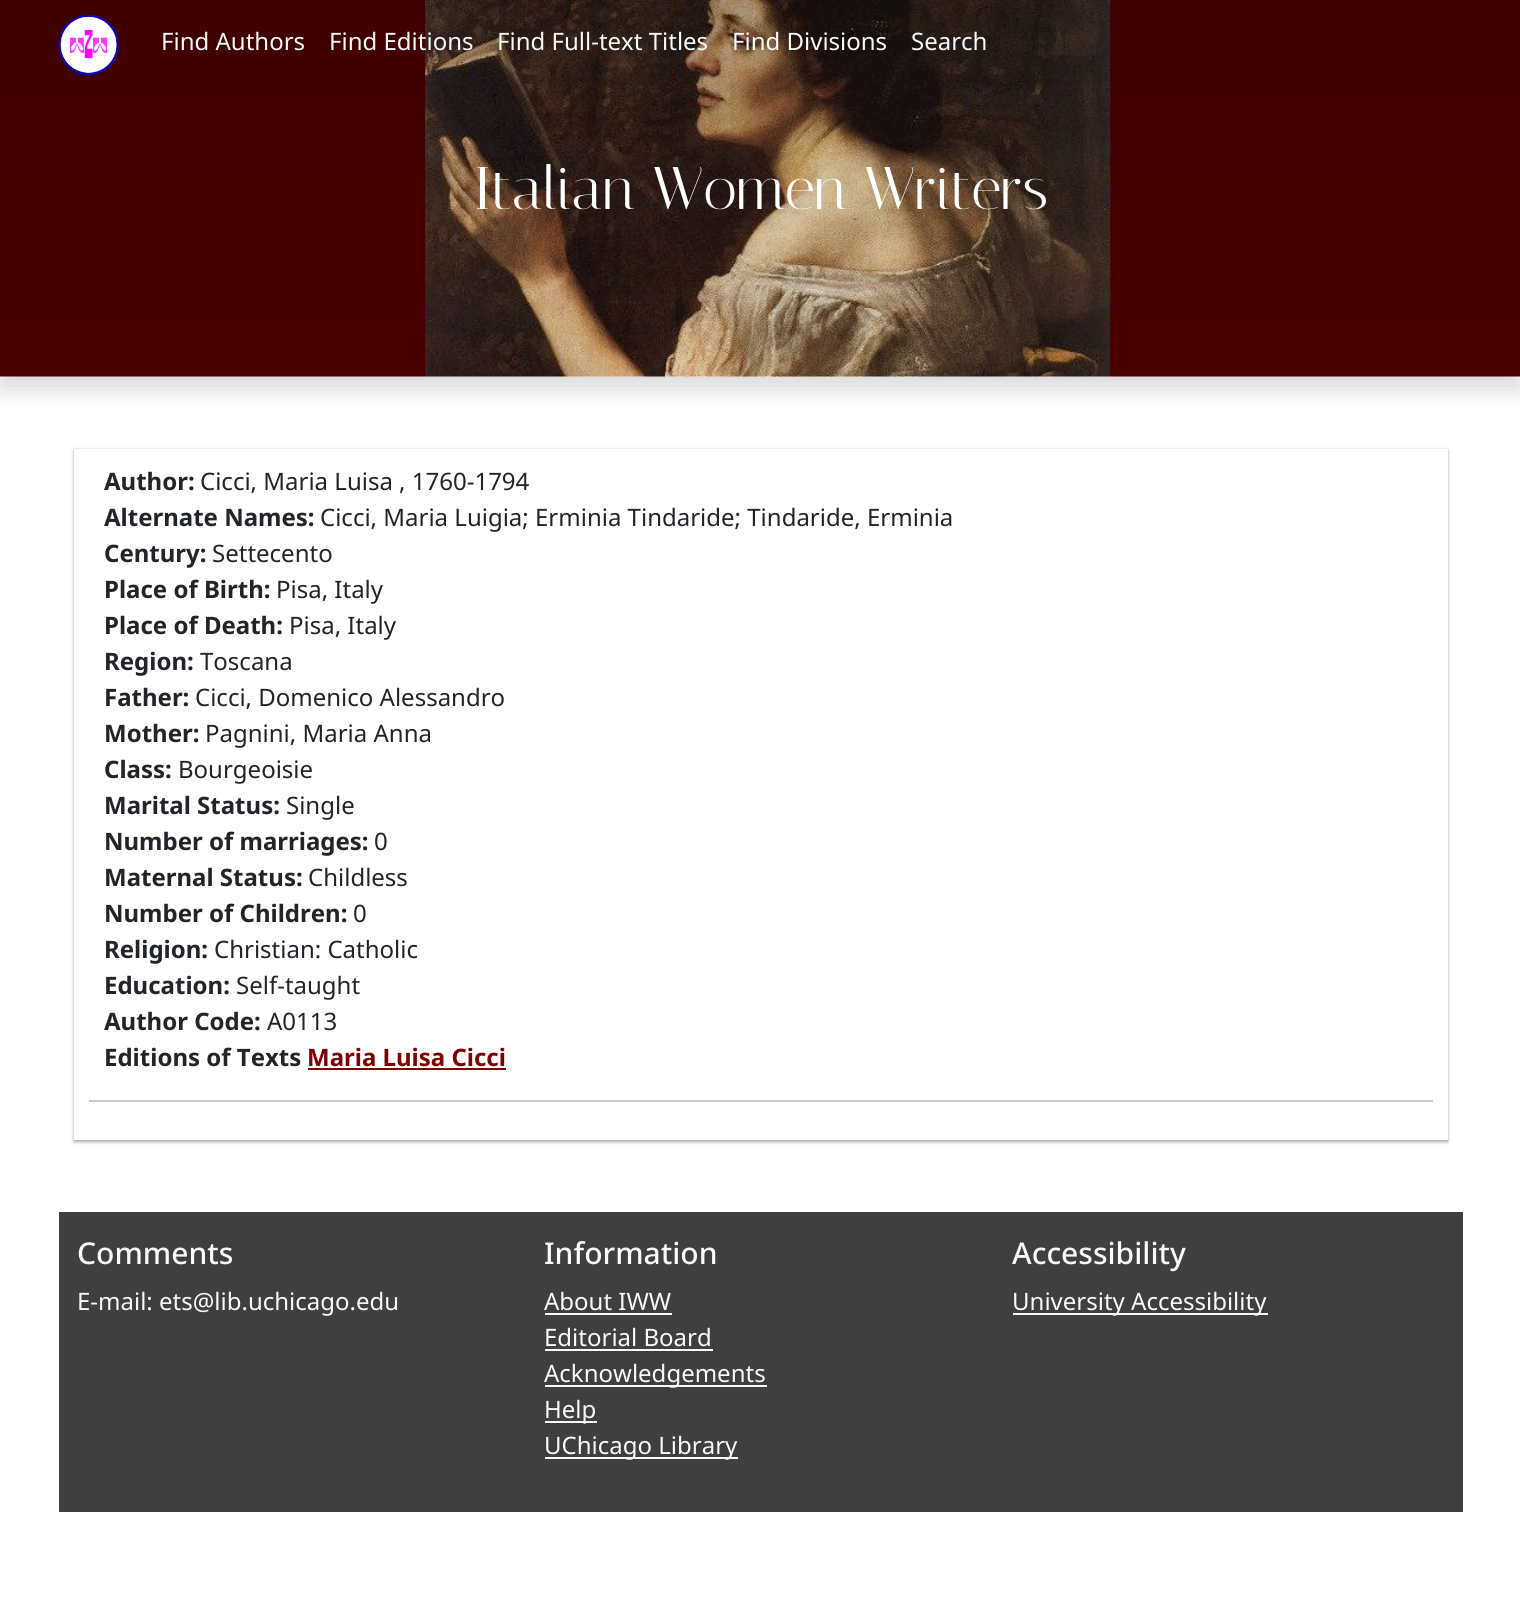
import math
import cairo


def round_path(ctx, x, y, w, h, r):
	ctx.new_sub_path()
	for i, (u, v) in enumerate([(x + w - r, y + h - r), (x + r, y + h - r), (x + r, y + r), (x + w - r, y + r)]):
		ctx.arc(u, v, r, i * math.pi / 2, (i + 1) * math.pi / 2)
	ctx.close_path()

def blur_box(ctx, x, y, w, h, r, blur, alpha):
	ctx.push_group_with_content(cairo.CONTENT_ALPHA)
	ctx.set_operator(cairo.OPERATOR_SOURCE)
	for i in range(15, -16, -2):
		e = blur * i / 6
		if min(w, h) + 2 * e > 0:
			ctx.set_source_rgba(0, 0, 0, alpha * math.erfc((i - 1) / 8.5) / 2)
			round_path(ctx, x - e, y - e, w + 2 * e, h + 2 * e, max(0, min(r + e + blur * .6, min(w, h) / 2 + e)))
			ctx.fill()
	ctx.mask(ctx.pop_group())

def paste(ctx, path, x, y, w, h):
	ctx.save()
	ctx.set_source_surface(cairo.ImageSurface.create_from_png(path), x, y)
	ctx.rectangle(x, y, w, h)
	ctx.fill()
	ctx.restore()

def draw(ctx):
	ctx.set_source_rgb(1, 1, 1)
	ctx.paint()
	ctx.set_source_rgb(0, 0, 0)
	blur_box(ctx, 0, -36, 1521, 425, 0, 12, 0.15)
	paste(ctx, 'media/2.png', 0, 0, 1520, 377)
	paste(ctx, 'media/1.png', 58, 15, 61, 60)
	ctx.select_font_face('Noto Sans')
	ctx.set_font_size(24)
	ctx.set_source_rgb(0.973, 0.976, 0.98)
	for x, y, s in [
		(161, 50, 'Find Authors'),
		(329, 50, 'Find Editions'),
		(497, 50, 'Find Full-text Titles'),
		(732, 50, 'Find Divisions'),
		(911, 50, 'Search'),
	]:
		ctx.move_to(x, y)
		ctx.show_text(s)
	ctx.select_font_face('Italiana')
	ctx.set_font_size(60)
	ctx.set_source_rgb(1, 1, 1)
	ctx.move_to(473, 209)
	ctx.show_text('Italian Women Writers')
	ctx.set_source_rgb(0, 0, 0)
	blur_box(ctx, 74, 450, 1374, 692, 0, 1.5, 0.24)
	blur_box(ctx, 74, 450, 1374, 692, 0, 2, 0.12)
	ctx.set_source_rgb(1, 1, 1)
	ctx.rectangle(74, 449, 1374, 691)
	ctx.fill()
	ctx.select_font_face('Noto Sans', cairo.FONT_SLANT_NORMAL, cairo.FONT_WEIGHT_BOLD)
	ctx.set_font_size(24)
	ctx.set_source_rgb(0.129, 0.145, 0.161)
	ctx.move_to(104, 490)
	ctx.show_text('Author:')
	ctx.select_font_face('Noto Sans')
	ctx.move_to(200, 490)
	ctx.show_text('Cicci, Maria Luisa , 1760-1794')
	ctx.select_font_face('Noto Sans', cairo.FONT_SLANT_NORMAL, cairo.FONT_WEIGHT_BOLD)
	ctx.move_to(104, 526)
	ctx.show_text('Alternate Names:')
	ctx.select_font_face('Noto Sans')
	ctx.move_to(320, 526)
	ctx.show_text('Cicci, Maria Luigia; Erminia Tindaride; Tindaride, Erminia')
	ctx.select_font_face('Noto Sans', cairo.FONT_SLANT_NORMAL, cairo.FONT_WEIGHT_BOLD)
	ctx.move_to(104, 562)
	ctx.show_text('Century:')
	ctx.select_font_face('Noto Sans')
	ctx.move_to(212, 562)
	ctx.show_text('Settecento')
	ctx.select_font_face('Noto Sans', cairo.FONT_SLANT_NORMAL, cairo.FONT_WEIGHT_BOLD)
	ctx.move_to(104, 598)
	ctx.show_text('Place of Birth:')
	ctx.select_font_face('Noto Sans')
	ctx.move_to(276, 598)
	ctx.show_text('Pisa, Italy')
	ctx.select_font_face('Noto Sans', cairo.FONT_SLANT_NORMAL, cairo.FONT_WEIGHT_BOLD)
	ctx.move_to(104, 634)
	ctx.show_text('Place of Death:')
	ctx.select_font_face('Noto Sans')
	ctx.move_to(289, 634)
	ctx.show_text('Pisa, Italy')
	ctx.select_font_face('Noto Sans', cairo.FONT_SLANT_NORMAL, cairo.FONT_WEIGHT_BOLD)
	ctx.move_to(104, 670)
	ctx.show_text('Region:')
	ctx.select_font_face('Noto Sans')
	ctx.move_to(200, 670)
	ctx.show_text('Toscana')
	ctx.select_font_face('Noto Sans', cairo.FONT_SLANT_NORMAL, cairo.FONT_WEIGHT_BOLD)
	ctx.move_to(104, 706)
	ctx.show_text('Father:')
	ctx.select_font_face('Noto Sans')
	ctx.move_to(195, 706)
	ctx.show_text('Cicci, Domenico Alessandro')
	ctx.select_font_face('Noto Sans', cairo.FONT_SLANT_NORMAL, cairo.FONT_WEIGHT_BOLD)
	ctx.move_to(104, 742)
	ctx.show_text('Mother:')
	ctx.select_font_face('Noto Sans')
	ctx.move_to(205, 742)
	ctx.show_text('Pagnini, Maria Anna')
	ctx.select_font_face('Noto Sans', cairo.FONT_SLANT_NORMAL, cairo.FONT_WEIGHT_BOLD)
	ctx.move_to(104, 778)
	ctx.show_text('Class:')
	ctx.select_font_face('Noto Sans')
	ctx.move_to(178, 778)
	ctx.show_text('Bourgeoisie')
	ctx.select_font_face('Noto Sans', cairo.FONT_SLANT_NORMAL, cairo.FONT_WEIGHT_BOLD)
	ctx.move_to(104, 814)
	ctx.show_text('Marital Status:')
	ctx.select_font_face('Noto Sans')
	ctx.move_to(286, 814)
	ctx.show_text('Single')
	ctx.select_font_face('Noto Sans', cairo.FONT_SLANT_NORMAL, cairo.FONT_WEIGHT_BOLD)
	ctx.move_to(104, 850)
	ctx.show_text('Number of marriages:')
	ctx.select_font_face('Noto Sans')
	ctx.move_to(374, 850)
	ctx.show_text('0')
	ctx.select_font_face('Noto Sans', cairo.FONT_SLANT_NORMAL, cairo.FONT_WEIGHT_BOLD)
	ctx.move_to(104, 886)
	ctx.show_text('Maternal Status:')
	ctx.select_font_face('Noto Sans')
	ctx.move_to(308, 886)
	ctx.show_text('Childless')
	ctx.select_font_face('Noto Sans', cairo.FONT_SLANT_NORMAL, cairo.FONT_WEIGHT_BOLD)
	ctx.move_to(104, 922)
	ctx.show_text('Number of Children:')
	ctx.select_font_face('Noto Sans')
	ctx.move_to(353, 922)
	ctx.show_text('0')
	ctx.select_font_face('Noto Sans', cairo.FONT_SLANT_NORMAL, cairo.FONT_WEIGHT_BOLD)
	ctx.move_to(104, 958)
	ctx.show_text('Religion:')
	ctx.select_font_face('Noto Sans')
	ctx.move_to(214, 958)
	ctx.show_text('Christian: Catholic')
	ctx.select_font_face('Noto Sans', cairo.FONT_SLANT_NORMAL, cairo.FONT_WEIGHT_BOLD)
	ctx.move_to(104, 994)
	ctx.show_text('Education:')
	ctx.select_font_face('Noto Sans')
	ctx.move_to(236, 994)
	ctx.show_text('Self-taught')
	ctx.select_font_face('Noto Sans', cairo.FONT_SLANT_NORMAL, cairo.FONT_WEIGHT_BOLD)
	ctx.move_to(104, 1030)
	ctx.show_text('Author Code:')
	ctx.select_font_face('Noto Sans')
	ctx.move_to(267, 1030)
	ctx.show_text('A0113')
	ctx.select_font_face('Noto Sans', cairo.FONT_SLANT_NORMAL, cairo.FONT_WEIGHT_BOLD)
	ctx.move_to(104, 1066)
	ctx.show_text('Editions of Texts')
	ctx.set_source_rgb(0.502, 0, 0)
	ctx.move_to(307, 1066)
	ctx.show_text('Maria Luisa Cicci')
	ctx.rectangle(308, 1068, 198, 2)
	ctx.fill()
	ctx.set_source_rgb(0.784, 0.788, 0.792)
	ctx.rectangle(89, 1100, 1344, 2)
	ctx.fill()
	ctx.set_source_rgb(0.251, 0.247, 0.247)
	ctx.rectangle(59, 1212, 1404, 300)
	ctx.fill()
	ctx.select_font_face('Noto Sans Medium')
	ctx.set_font_size(30)
	ctx.set_source_rgb(0.973, 0.976, 0.98)
	ctx.move_to(77, 1264)
	ctx.show_text('Comments')
	ctx.select_font_face('Noto Sans')
	ctx.set_font_size(24)
	ctx.move_to(77, 1310)
	ctx.show_text('E-mail: ets@lib.uchicago.edu')
	ctx.select_font_face('Noto Sans Medium')
	ctx.set_font_size(30)
	ctx.move_to(544, 1264)
	ctx.show_text('Information')
	ctx.select_font_face('Noto Sans')
	ctx.set_font_size(24)
	ctx.move_to(544, 1310)
	ctx.show_text('About IWW')
	ctx.rectangle(545, 1313, 127, 2)
	ctx.fill()
	ctx.move_to(544, 1346)
	ctx.show_text('Editorial Board')
	ctx.rectangle(545, 1349, 168, 2)
	ctx.fill()
	ctx.rectangle(545, 1385, 222, 2)
	ctx.fill()
	ctx.move_to(544, 1382)
	ctx.show_text('Acknowledgements')
	ctx.rectangle(545, 1421, 52, 2)
	ctx.fill()
	ctx.move_to(544, 1418)
	ctx.show_text('Help')
	ctx.rectangle(545, 1457, 193, 2)
	ctx.fill()
	ctx.move_to(544, 1454)
	ctx.show_text('UChicago Library')
	ctx.select_font_face('Noto Sans Medium')
	ctx.set_font_size(30)
	ctx.move_to(1012, 1264)
	ctx.show_text('Accessibility')
	ctx.rectangle(1013, 1313, 255, 2)
	ctx.fill()
	ctx.select_font_face('Noto Sans')
	ctx.set_font_size(24)
	ctx.move_to(1012, 1310)
	ctx.show_text('University Accessibility')


surface = cairo.ImageSurface(cairo.FORMAT_RGB24, 1520, 1612)
ctx = cairo.Context(surface)
options = cairo.FontOptions()
options.set_hint_metrics(cairo.HINT_METRICS_OFF)
options.set_hint_style(cairo.HINT_STYLE_NONE)
ctx.set_font_options(options)
ctx.set_miter_limit(4)
draw(ctx)
surface.write_to_png('image.png')
